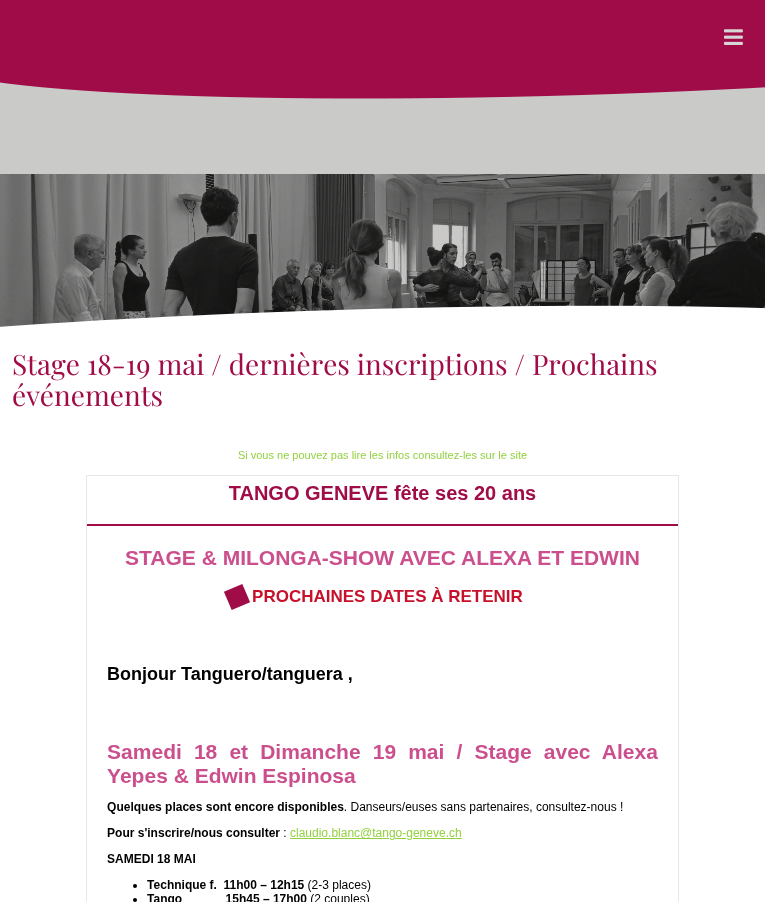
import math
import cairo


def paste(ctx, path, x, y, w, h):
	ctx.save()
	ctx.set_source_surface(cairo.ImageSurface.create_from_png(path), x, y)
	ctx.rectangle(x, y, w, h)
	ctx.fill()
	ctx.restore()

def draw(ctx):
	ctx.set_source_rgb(1, 1, 1)
	ctx.paint()
	ctx.set_source_rgb(0.792, 0.792, 0.788)
	ctx.rectangle(0, 82, 765, 92)
	ctx.fill()
	ctx.set_source_rgb(0.627, 0.047, 0.278)
	ctx.rectangle(0, 0, 765, 74)
	ctx.fill()
	paste(ctx, 'media/1.png', 724, 29, 19, 16)
	ctx.save()
	ctx.rectangle(0, 74, 765, 255)
	ctx.clip()
	ctx.new_path()
	ctx.move_to(610, -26)
	ctx.curve_to(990, -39, 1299, -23, 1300, 10)
	ctx.curve_to(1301, 43, 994, 81, 614, 94)
	ctx.curve_to(234, 107, -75, 91, -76, 58)
	ctx.curve_to(-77, 25, 230, -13, 610, -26)
	ctx.close_path()
	ctx.fill()
	ctx.restore()
	paste(ctx, 'media/2.png', 0, 174, 765, 153)
	ctx.save()
	ctx.rectangle(0, 74, 765, 255)
	ctx.clip()
	ctx.set_source_rgb(1, 1, 1)
	ctx.new_path()
	ctx.move_to(304, 311)
	ctx.curve_to(684, 298, 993, 310, 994, 337)
	ctx.curve_to(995, 365, 688, 398, 308, 411)
	ctx.curve_to(-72, 424, -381, 413, -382, 385)
	ctx.curve_to(-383, 358, -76, 324, 304, 311)
	ctx.close_path()
	ctx.fill()
	ctx.restore()
	ctx.select_font_face('Playfair Display')
	ctx.set_font_size(28)
	ctx.move_to(12, 375)
	ctx.show_text('Stage 18-19 mai / dernières inscriptions / Prochains')
	ctx.move_to(12, 406)
	ctx.show_text('événements')
	paste(ctx, 'media/3.png', 86, 451, 593, 451)


surface = cairo.ImageSurface(cairo.FORMAT_RGB24, 765, 902)
ctx = cairo.Context(surface)
options = cairo.FontOptions()
options.set_hint_metrics(cairo.HINT_METRICS_OFF)
options.set_hint_style(cairo.HINT_STYLE_NONE)
ctx.set_font_options(options)
ctx.set_miter_limit(4)
draw(ctx)
surface.write_to_png('image.png')
